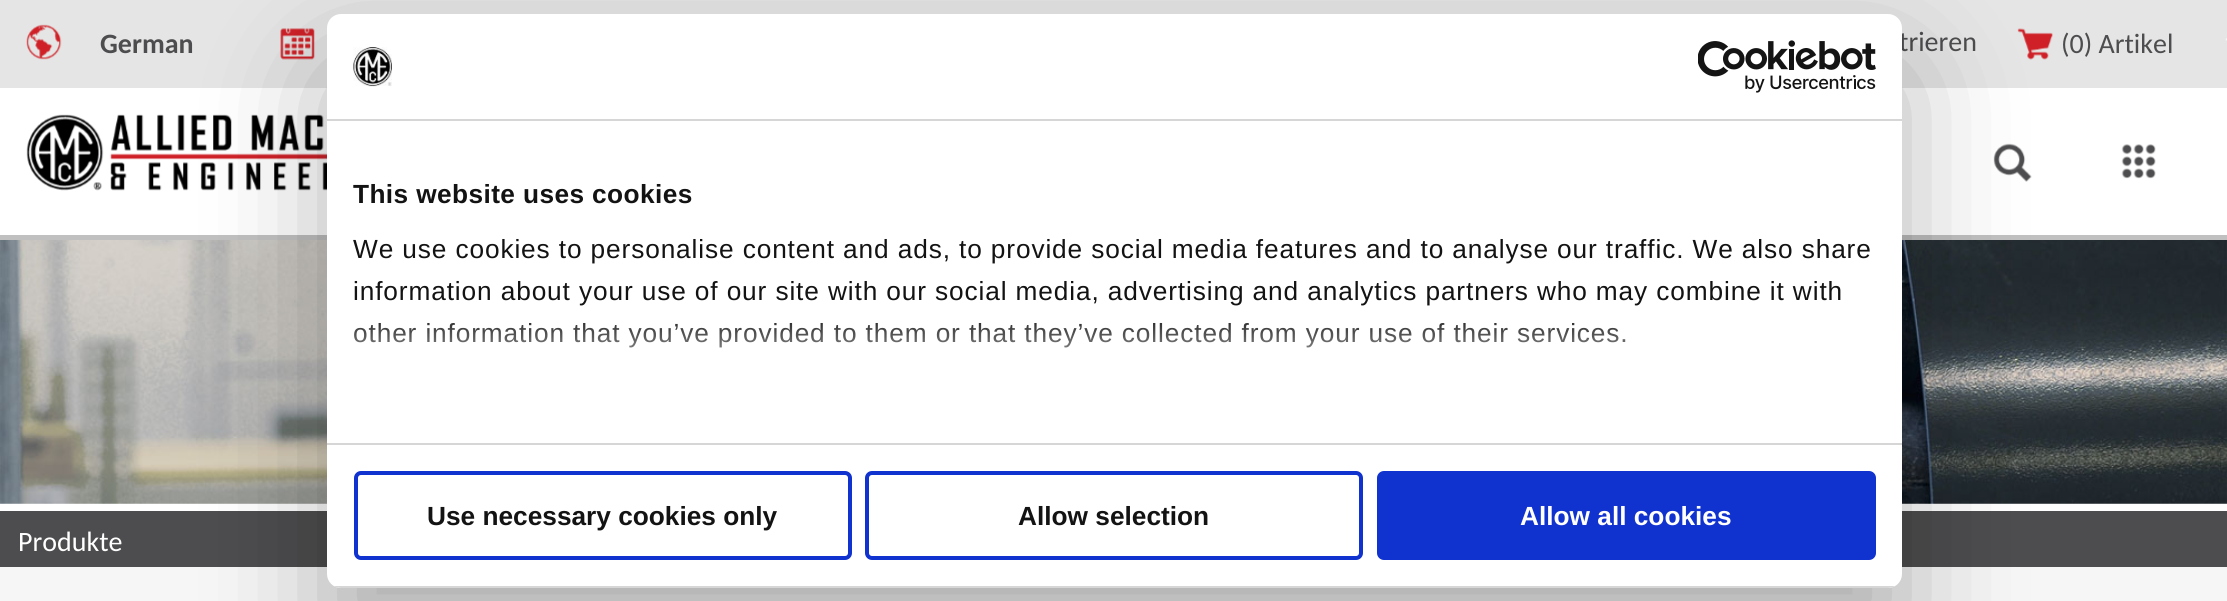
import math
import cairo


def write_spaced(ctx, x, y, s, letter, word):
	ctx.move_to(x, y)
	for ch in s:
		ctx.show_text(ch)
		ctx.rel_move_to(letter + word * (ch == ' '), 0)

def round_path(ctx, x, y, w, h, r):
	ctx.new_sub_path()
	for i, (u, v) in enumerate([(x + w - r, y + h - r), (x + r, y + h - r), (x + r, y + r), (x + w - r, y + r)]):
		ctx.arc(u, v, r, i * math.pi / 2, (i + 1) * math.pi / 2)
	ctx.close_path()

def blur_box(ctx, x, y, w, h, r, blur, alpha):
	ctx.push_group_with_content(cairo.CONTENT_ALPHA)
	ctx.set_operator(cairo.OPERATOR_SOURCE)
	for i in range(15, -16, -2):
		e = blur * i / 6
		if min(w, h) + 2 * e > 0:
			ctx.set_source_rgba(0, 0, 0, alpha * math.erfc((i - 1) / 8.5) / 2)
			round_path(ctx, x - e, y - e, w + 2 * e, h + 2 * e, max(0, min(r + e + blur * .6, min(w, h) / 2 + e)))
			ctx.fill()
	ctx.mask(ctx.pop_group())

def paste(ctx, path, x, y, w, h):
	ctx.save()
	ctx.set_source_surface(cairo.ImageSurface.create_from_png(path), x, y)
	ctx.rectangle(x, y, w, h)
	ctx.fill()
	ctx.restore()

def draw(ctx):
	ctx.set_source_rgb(1, 1, 1)
	ctx.paint()
	ctx.set_source_rgb(0.898, 0.898, 0.898)
	ctx.rectangle(0, 0, 2227, 88)
	ctx.fill()
	paste(ctx, 'media/1.png', 26, 24, 36, 36)
	ctx.select_font_face('Carlito', cairo.FONT_SLANT_NORMAL, cairo.FONT_WEIGHT_BOLD)
	ctx.set_font_size(28)
	ctx.set_source_rgb(0.302, 0.302, 0.31)
	ctx.move_to(100, 53)
	ctx.show_text('German')
	paste(ctx, 'media/2.png', 280, 28, 35, 32)
	ctx.select_font_face('Carlito')
	ctx.move_to(1899, 51)
	ctx.show_text('trieren')
	paste(ctx, 'media/3.png', 2017, 28, 36, 32)
	ctx.move_to(2061, 53)
	ctx.show_text('(0) Artikel')
	paste(ctx, 'media/4.png', 2225, 38, 2, 3)
	ctx.set_source_rgb(0.753, 0.753, 0.753)
	ctx.rectangle(0, 235, 2227, 5)
	ctx.fill()
	paste(ctx, 'media/5.png', 26, 114, 301, 77)
	paste(ctx, 'media/6.png', 2121, 144, 35, 35)
	paste(ctx, 'media/7.png', 1993, 143, 39, 39)
	paste(ctx, 'media/8.png', 0, 240, 2227, 264)
	ctx.set_source_rgb(0.302, 0.302, 0.31)
	ctx.rectangle(0, 511, 2227, 56)
	ctx.fill()
	ctx.set_source_rgb(1, 1, 1)
	ctx.move_to(18, 551)
	ctx.show_text('Produkte')
	ctx.set_source_rgb(0.961, 0.961, 0.961)
	ctx.rectangle(0, 567, 2227, 34)
	ctx.fill()
	ctx.set_source_rgb(0, 0, 0)
	blur_box(ctx, 327, 70, 1575, 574, 14, 59.5, 0.3)
	ctx.set_source_rgb(1, 1, 1)
	round_path(ctx, 327, 14, 1575, 574, 14)
	ctx.fill()
	ctx.set_source_rgb(0.839, 0.839, 0.839)
	ctx.rectangle(327, 119, 1575, 2)
	ctx.fill()
	paste(ctx, 'media/9.png', 353, 47, 39, 40)
	paste(ctx, 'media/10.png', 1698, 40, 178, 53)
	ctx.rectangle(327, 443, 1575, 2)
	ctx.fill()
	ctx.select_font_face('Liberation Sans', cairo.FONT_SLANT_NORMAL, cairo.FONT_WEIGHT_BOLD)
	ctx.set_font_size(26.25)
	ctx.set_source_rgb(0.078, 0.078, 0.078)
	write_spaced(ctx, 353, 203, 'This website uses cookies', 0.4, 0)
	ctx.select_font_face('Liberation Sans')
	for x, y, s in [
		(353, 258, 'We use cookies to personalise content and ads, to provide social media features and to analyse our traffic. We also share'),
		(353, 300, 'information about your use of our site with our social media, advertising and analytics partners who may combine it with'),
		(353, 342, 'other information that you’ve provided to them or that they’ve collected from your use of their services.'),
	]:
		write_spaced(ctx, x, y, s, 0.88, 0)
	gradient = cairo.LinearGradient(1103, 443, 1103, 312)
	gradient.add_color_stop_rgba(0, 1, 1, 1, 1)
	gradient.add_color_stop_rgba(0.5, 1, 1, 1, 0.8)
	gradient.add_color_stop_rgba(1, 1, 1, 1, 0)
	ctx.set_source(gradient)
	ctx.rectangle(353, 323, 1272, 25)
	ctx.fill()
	ctx.save()
	round_path(ctx, 327, 14, 1575, 574, 14)
	ctx.clip()
	ctx.set_source_rgb(0.839, 0.839, 0.839)
	ctx.rectangle(327, 586, 1575, 2)
	ctx.fill()
	ctx.restore()
	round_path(ctx, 356, 473, 494, 85, 5)
	ctx.set_source_rgb(0.063, 0.196, 0.812)
	ctx.set_line_width(4)
	ctx.stroke()
	ctx.select_font_face('Liberation Sans', cairo.FONT_SLANT_NORMAL, cairo.FONT_WEIGHT_BOLD)
	ctx.set_source_rgb(0.078, 0.078, 0.078)
	ctx.move_to(427, 525)
	ctx.show_text('Use necessary cookies only')
	round_path(ctx, 867, 473, 494, 85, 5)
	ctx.set_source_rgb(0.063, 0.196, 0.812)
	ctx.stroke()
	ctx.set_source_rgb(0.078, 0.078, 0.078)
	ctx.move_to(1018, 525)
	ctx.show_text('Allow selection')
	ctx.set_source_rgb(0.063, 0.196, 0.812)
	round_path(ctx, 1379, 473, 495, 85, 5)
	ctx.fill_preserve()
	ctx.stroke()
	ctx.set_source_rgb(1, 1, 1)
	ctx.move_to(1520, 525)
	ctx.show_text('Allow all cookies')


surface = cairo.ImageSurface(cairo.FORMAT_RGB24, 2227, 601)
ctx = cairo.Context(surface)
options = cairo.FontOptions()
options.set_hint_metrics(cairo.HINT_METRICS_OFF)
options.set_hint_style(cairo.HINT_STYLE_NONE)
ctx.set_font_options(options)
ctx.set_miter_limit(4)
draw(ctx)
surface.write_to_png('image.png')
